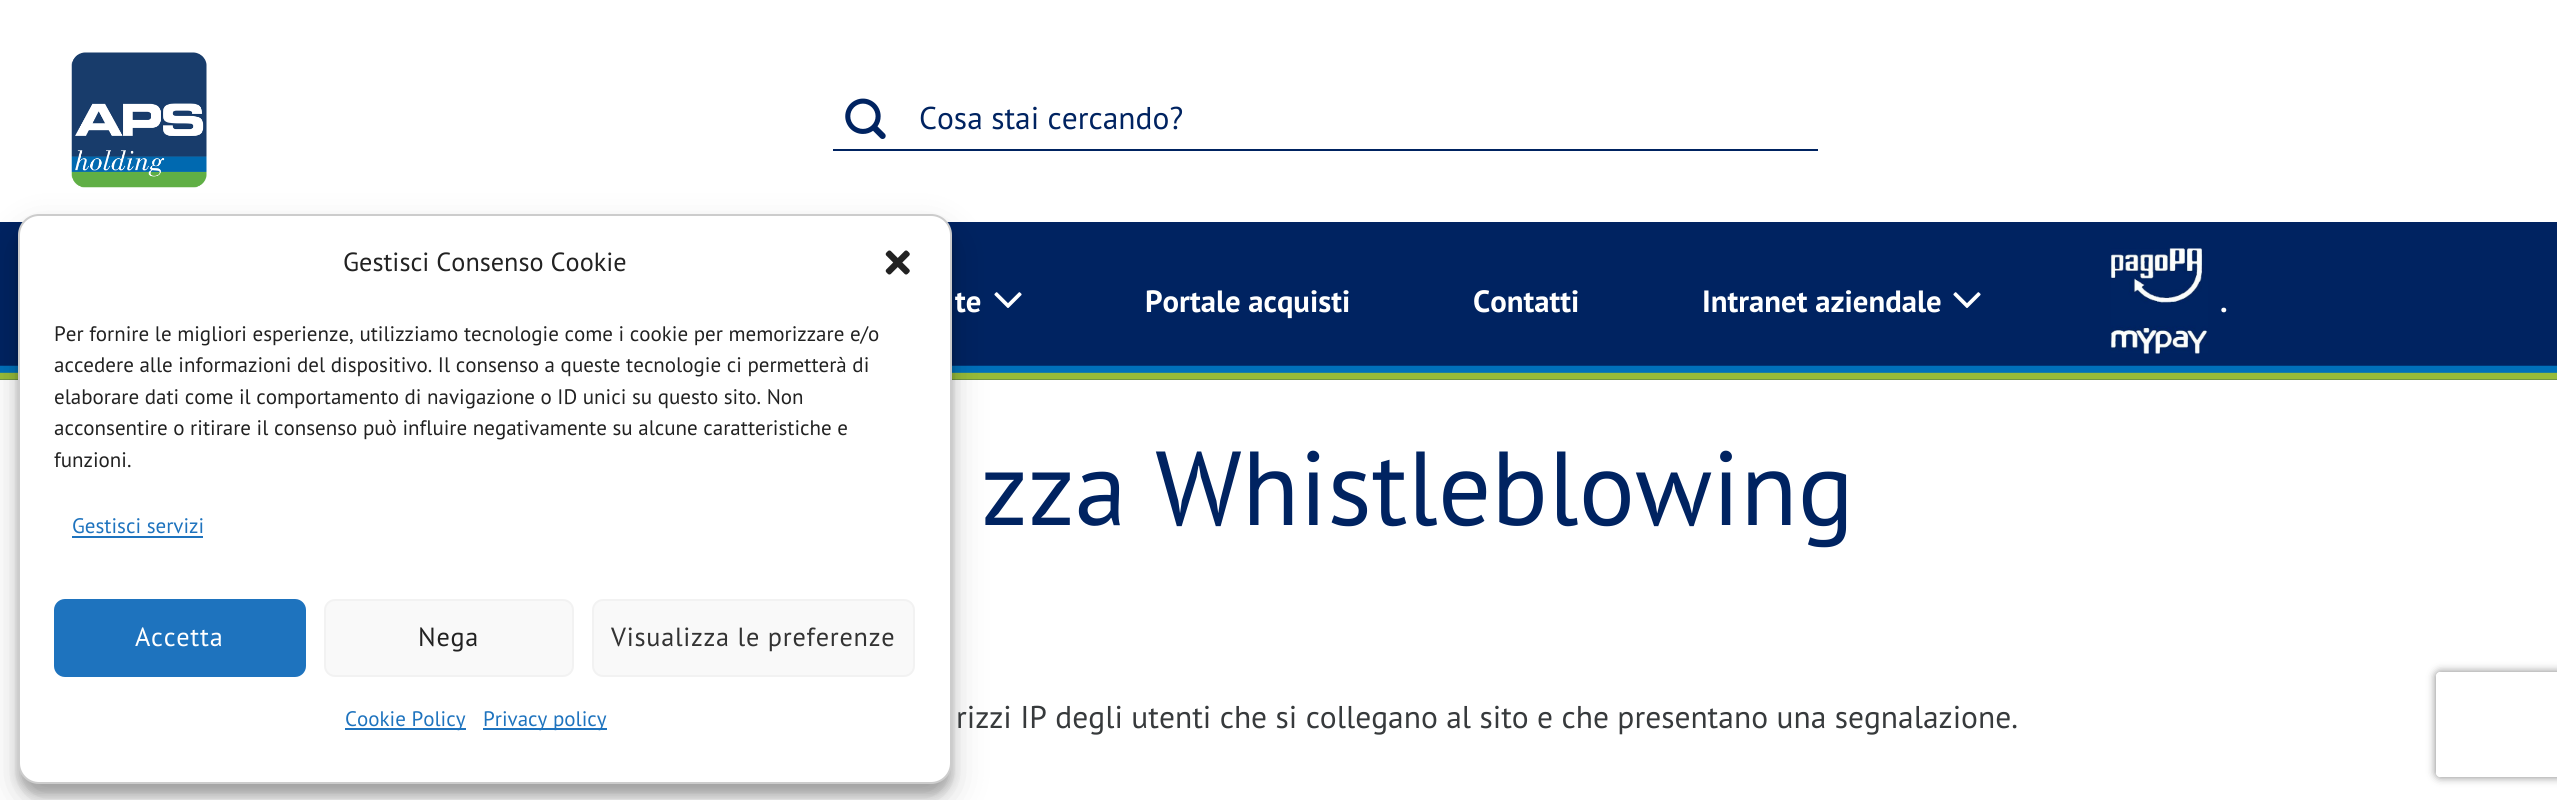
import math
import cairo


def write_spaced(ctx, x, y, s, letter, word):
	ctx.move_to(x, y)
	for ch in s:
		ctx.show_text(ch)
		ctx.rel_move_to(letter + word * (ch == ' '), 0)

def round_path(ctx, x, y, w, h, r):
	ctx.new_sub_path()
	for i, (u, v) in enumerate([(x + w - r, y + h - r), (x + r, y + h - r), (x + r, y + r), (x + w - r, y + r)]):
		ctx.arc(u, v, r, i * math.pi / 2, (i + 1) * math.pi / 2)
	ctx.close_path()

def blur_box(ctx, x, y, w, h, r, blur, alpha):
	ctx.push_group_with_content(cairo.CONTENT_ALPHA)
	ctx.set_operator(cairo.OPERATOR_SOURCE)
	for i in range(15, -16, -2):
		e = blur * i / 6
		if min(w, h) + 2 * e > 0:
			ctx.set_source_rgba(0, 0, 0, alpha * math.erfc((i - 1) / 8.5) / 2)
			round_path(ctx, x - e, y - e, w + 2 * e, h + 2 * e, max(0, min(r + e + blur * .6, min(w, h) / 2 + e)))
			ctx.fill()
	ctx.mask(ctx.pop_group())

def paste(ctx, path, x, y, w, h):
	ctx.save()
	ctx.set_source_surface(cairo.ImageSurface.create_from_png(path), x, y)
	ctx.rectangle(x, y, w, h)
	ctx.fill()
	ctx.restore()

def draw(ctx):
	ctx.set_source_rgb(1, 1, 1)
	ctx.paint()
	ctx.set_source_rgb(0, 0.137, 0.38)
	ctx.rectangle(0, 222, 2557, 158)
	ctx.fill()
	paste(ctx, 'media/6.png', 0, 365, 2557, 15)
	ctx.set_source_rgb(0, 0, 0)
	blur_box(ctx, 18, 224, 934, 571, 21, 5, 0.23)
	paste(ctx, 'media/2.png', 71, 52, 136, 136)
	paste(ctx, 'media/4.png', 994, 292, 28, 16)
	blur_box(ctx, 18, 231, 934, 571, 21, 17.5, 0.19)
	ctx.set_source_rgb(1, 1, 1)
	round_path(ctx, 19, 215, 932, 568, 20)
	ctx.fill_preserve()
	ctx.set_source_rgb(0.8, 0.8, 0.8)
	ctx.stroke()
	ctx.select_font_face('PT Sans')
	ctx.set_font_size(26.25)
	ctx.set_source_rgb(0.133, 0.133, 0.133)
	ctx.move_to(343, 271)
	ctx.show_text('Gestisci Consenso Cookie')
	paste(ctx, 'media/1.png', 885, 250, 25, 25)
	ctx.set_font_size(21)
	for x, y, s in [
		(54, 341, 'Per fornire le migliori esperienze, utilizziamo tecnologie come i cookie per memorizzare e/o'),
		(54, 372, 'accedere alle informazioni del dispositivo. Il consenso a queste tecnologie ci permetterà di'),
		(54, 404, 'elaborare dati come il comportamento di navigazione o ID unici su questo sito. Non'),
		(54, 435, 'acconsentire o ritirare il consenso può influire negativamente su alcune caratteristiche e'),
		(54, 467, 'funzioni.'),
	]:
		ctx.move_to(x, y)
		ctx.show_text(s)
	ctx.set_source_rgb(0.118, 0.451, 0.745)
	ctx.move_to(72, 533)
	ctx.show_text('Gestisci servizi')
	ctx.rectangle(72, 536, 131, 2)
	ctx.fill()
	round_path(ctx, 55, 600, 250, 76, 10)
	ctx.fill_preserve()
	ctx.stroke()
	ctx.set_font_size(26.25)
	ctx.set_source_rgb(1, 1, 1)
	write_spaced(ctx, 135, 646, 'Accetta', 0.75, 0)
	ctx.set_source_rgb(0.976, 0.976, 0.976)
	round_path(ctx, 325, 600, 248, 76, 10)
	ctx.fill_preserve()
	ctx.set_source_rgb(0.949, 0.949, 0.949)
	ctx.stroke()
	ctx.set_source_rgb(0.133, 0.133, 0.133)
	write_spaced(ctx, 418, 646, 'Nega', 0.75, 0)
	ctx.set_source_rgb(0.976, 0.976, 0.976)
	round_path(ctx, 593, 600, 321, 76, 10)
	ctx.fill_preserve()
	ctx.set_source_rgb(0.949, 0.949, 0.949)
	ctx.stroke()
	ctx.set_source_rgb(0.2, 0.2, 0.2)
	write_spaced(ctx, 611, 646, 'Visualizza le preferenze', 0.75, 0)
	ctx.set_source_rgb(0.118, 0.451, 0.745)
	ctx.rectangle(345, 728, 121, 2)
	ctx.fill()
	ctx.set_font_size(21)
	ctx.move_to(345, 726)
	ctx.show_text('Cookie Policy')
	ctx.rectangle(483, 728, 124, 2)
	ctx.fill()
	ctx.move_to(483, 726)
	ctx.show_text('Privacy policy')
	paste(ctx, 'media/3.png', 845, 98, 41, 41)
	ctx.set_source_rgb(0, 0.137, 0.38)
	ctx.rectangle(831, 149, 987, 2)
	ctx.fill()
	ctx.set_source_rgb(1, 1, 1)
	ctx.rectangle(831, 149, 2, 2)
	ctx.fill()
	ctx.set_font_size(31.5)
	ctx.set_source_rgb(0, 0.137, 0.38)
	ctx.move_to(919, 129)
	ctx.show_text('Cosa stai cercando?')
	ctx.select_font_face('PT Sans', cairo.FONT_SLANT_NORMAL, cairo.FONT_WEIGHT_BOLD)
	ctx.set_font_size(30.75)
	ctx.set_source_rgb(1, 1, 1)
	for x, y, s in [
		(955, 312, 'te'),
		(1145, 312, 'Portale acquisti'),
		(1473, 312, 'Contatti'),
		(1702, 312, 'Intranet aziendale'),
	]:
		ctx.move_to(x, y)
		ctx.show_text(s)
	paste(ctx, 'media/4.png', 1953, 292, 28, 16)
	paste(ctx, 'media/5.png', 2111, 248, 97, 106)
	ctx.move_to(2220, 312)
	ctx.show_text('.')
	ctx.select_font_face('PT Sans')
	ctx.set_font_size(105)
	ctx.set_source_rgb(0, 0.137, 0.38)
	ctx.move_to(981, 525)
	ctx.show_text('zza Whistleblowing')
	ctx.set_font_size(31.5)
	ctx.set_source_rgb(0.216, 0.227, 0.235)
	ctx.move_to(956, 728)
	ctx.show_text('rizzi IP degli utenti che si collegano al sito e che presentano una segnalazione.')
	ctx.save()
	ctx.set_fill_rule(cairo.FILL_RULE_EVEN_ODD)
	ctx.new_path()
	ctx.move_to(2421, 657)
	ctx.line_to(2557, 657)
	ctx.line_to(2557, 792)
	ctx.line_to(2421, 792)
	ctx.close_path()
	ctx.move_to(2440, 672)
	ctx.line_to(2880, 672)
	ctx.curve_to(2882, 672, 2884, 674, 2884, 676)
	ctx.line_to(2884, 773)
	ctx.curve_to(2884, 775, 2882, 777, 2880, 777)
	ctx.line_to(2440, 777)
	ctx.curve_to(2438, 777, 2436, 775, 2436, 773)
	ctx.line_to(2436, 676)
	ctx.curve_to(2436, 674, 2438, 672, 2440, 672)
	ctx.close_path()
	ctx.clip()
	ctx.set_source_rgb(0.502, 0.502, 0.502)
	blur_box(ctx, 2436, 672, 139, 105, 4, 4.5, 1)
	ctx.restore()


surface = cairo.ImageSurface(cairo.FORMAT_RGB24, 2557, 800)
ctx = cairo.Context(surface)
options = cairo.FontOptions()
options.set_hint_metrics(cairo.HINT_METRICS_OFF)
options.set_hint_style(cairo.HINT_STYLE_NONE)
ctx.set_font_options(options)
ctx.set_miter_limit(4)
draw(ctx)
surface.write_to_png('image.png')
